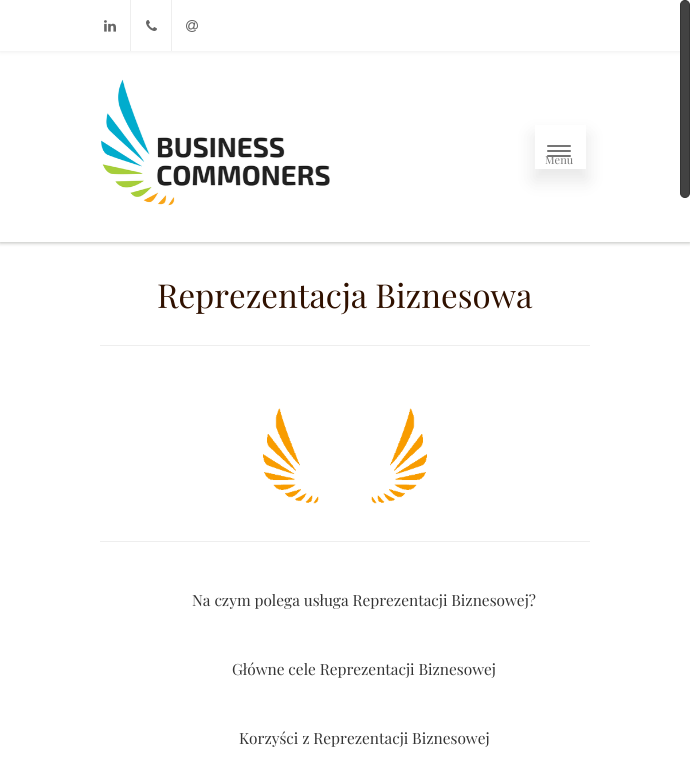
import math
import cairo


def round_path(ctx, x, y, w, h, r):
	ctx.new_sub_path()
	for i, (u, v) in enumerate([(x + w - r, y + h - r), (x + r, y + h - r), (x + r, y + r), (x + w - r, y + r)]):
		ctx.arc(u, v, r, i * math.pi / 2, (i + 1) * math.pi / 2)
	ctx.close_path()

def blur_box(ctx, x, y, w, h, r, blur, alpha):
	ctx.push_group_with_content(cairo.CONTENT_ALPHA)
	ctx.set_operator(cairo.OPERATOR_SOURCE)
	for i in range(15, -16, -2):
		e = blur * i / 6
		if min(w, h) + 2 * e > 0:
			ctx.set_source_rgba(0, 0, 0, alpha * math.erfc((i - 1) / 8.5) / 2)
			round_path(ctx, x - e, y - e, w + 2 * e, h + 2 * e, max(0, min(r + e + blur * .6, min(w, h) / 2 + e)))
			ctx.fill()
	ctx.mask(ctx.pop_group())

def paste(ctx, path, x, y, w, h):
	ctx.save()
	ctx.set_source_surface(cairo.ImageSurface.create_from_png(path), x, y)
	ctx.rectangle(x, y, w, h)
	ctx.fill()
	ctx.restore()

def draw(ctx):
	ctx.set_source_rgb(1, 1, 1)
	ctx.paint()
	ctx.save()
	ctx.rectangle(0, 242, 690, 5)
	ctx.clip()
	ctx.set_source_rgb(0.655, 0.663, 0.643)
	blur_box(ctx, 0, 1, 690, 242, 0, 2, 0.75)
	ctx.restore()
	ctx.save()
	ctx.rectangle(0, 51, 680, 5)
	ctx.clip()
	ctx.set_source_rgb(0.933, 0.933, 0.933)
	blur_box(ctx, 0, 1, 690, 51, 0, 2, 1)
	ctx.restore()
	ctx.set_source_rgb(0.259, 0.259, 0.259)
	round_path(ctx, 680.5, 0.5, 9, 197, 4.5)
	ctx.fill_preserve()
	ctx.set_source_rgb(0.2, 0.2, 0.2)
	ctx.set_line_width(1)
	ctx.stroke()
	paste(ctx, 'media/1.png', 104, 20, 12, 12)
	ctx.set_source_rgb(0.933, 0.933, 0.933)
	ctx.rectangle(130, 0, 1, 51)
	ctx.fill()
	paste(ctx, 'media/2.png', 146, 20, 11, 11)
	ctx.rectangle(171, 0, 1, 51)
	ctx.fill()
	paste(ctx, 'media/3.png', 186, 20, 12, 12)
	paste(ctx, 'media/4.png', 101, 79, 229, 127)
	ctx.save()
	ctx.set_fill_rule(cairo.FILL_RULE_EVEN_ODD)
	ctx.new_path()
	ctx.move_to(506, 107)
	ctx.line_to(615, 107)
	ctx.line_to(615, 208)
	ctx.line_to(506, 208)
	ctx.close_path()
	ctx.move_to(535, 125)
	ctx.line_to(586, 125)
	ctx.line_to(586, 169)
	ctx.line_to(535, 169)
	ctx.close_path()
	ctx.clip()
	ctx.set_source_rgb(0.251, 0.251, 0.251)
	blur_box(ctx, 534, 135, 53, 45, 0, 9, 0.13)
	ctx.restore()
	ctx.set_source_rgb(0.459, 0.459, 0.459)
	round_path(ctx, 547, 145, 24, 2, 1)
	ctx.fill()
	round_path(ctx, 547, 150, 24, 2, 1)
	ctx.fill()
	round_path(ctx, 547, 155, 24, 2, 1)
	ctx.fill()
	ctx.select_font_face('Playfair Display')
	ctx.set_font_size(11)
	ctx.move_to(545, 164)
	ctx.show_text('Menu')
	ctx.set_font_size(33)
	ctx.set_source_rgb(0.188, 0.067, 0)
	ctx.move_to(157, 308)
	ctx.show_text('Reprezentacja Biznesowa')
	ctx.set_source_rgb(0.933, 0.933, 0.933)
	ctx.rectangle(100, 345, 490, 1)
	ctx.fill()
	paste(ctx, 'media/5.png', 263, 408, 56, 96)
	paste(ctx, 'media/6.png', 371, 408, 56, 96)
	ctx.rectangle(100, 541, 490, 1)
	ctx.fill()
	ctx.set_font_size(15.4)
	ctx.set_source_rgb(0.2, 0.2, 0.2)
	for x, y, s in [
		(192, 606, 'Na czym polega usługa Reprezentacji Biznesowej?'),
		(232, 675, 'Główne cele Reprezentacji Biznesowej'),
		(239, 744, 'Korzyści z Reprezentacji Biznesowej'),
	]:
		ctx.move_to(x, y)
		ctx.show_text(s)


surface = cairo.ImageSurface(cairo.FORMAT_RGB24, 690, 761)
ctx = cairo.Context(surface)
options = cairo.FontOptions()
options.set_hint_metrics(cairo.HINT_METRICS_OFF)
options.set_hint_style(cairo.HINT_STYLE_NONE)
ctx.set_font_options(options)
ctx.set_miter_limit(4)
draw(ctx)
surface.write_to_png('image.png')
